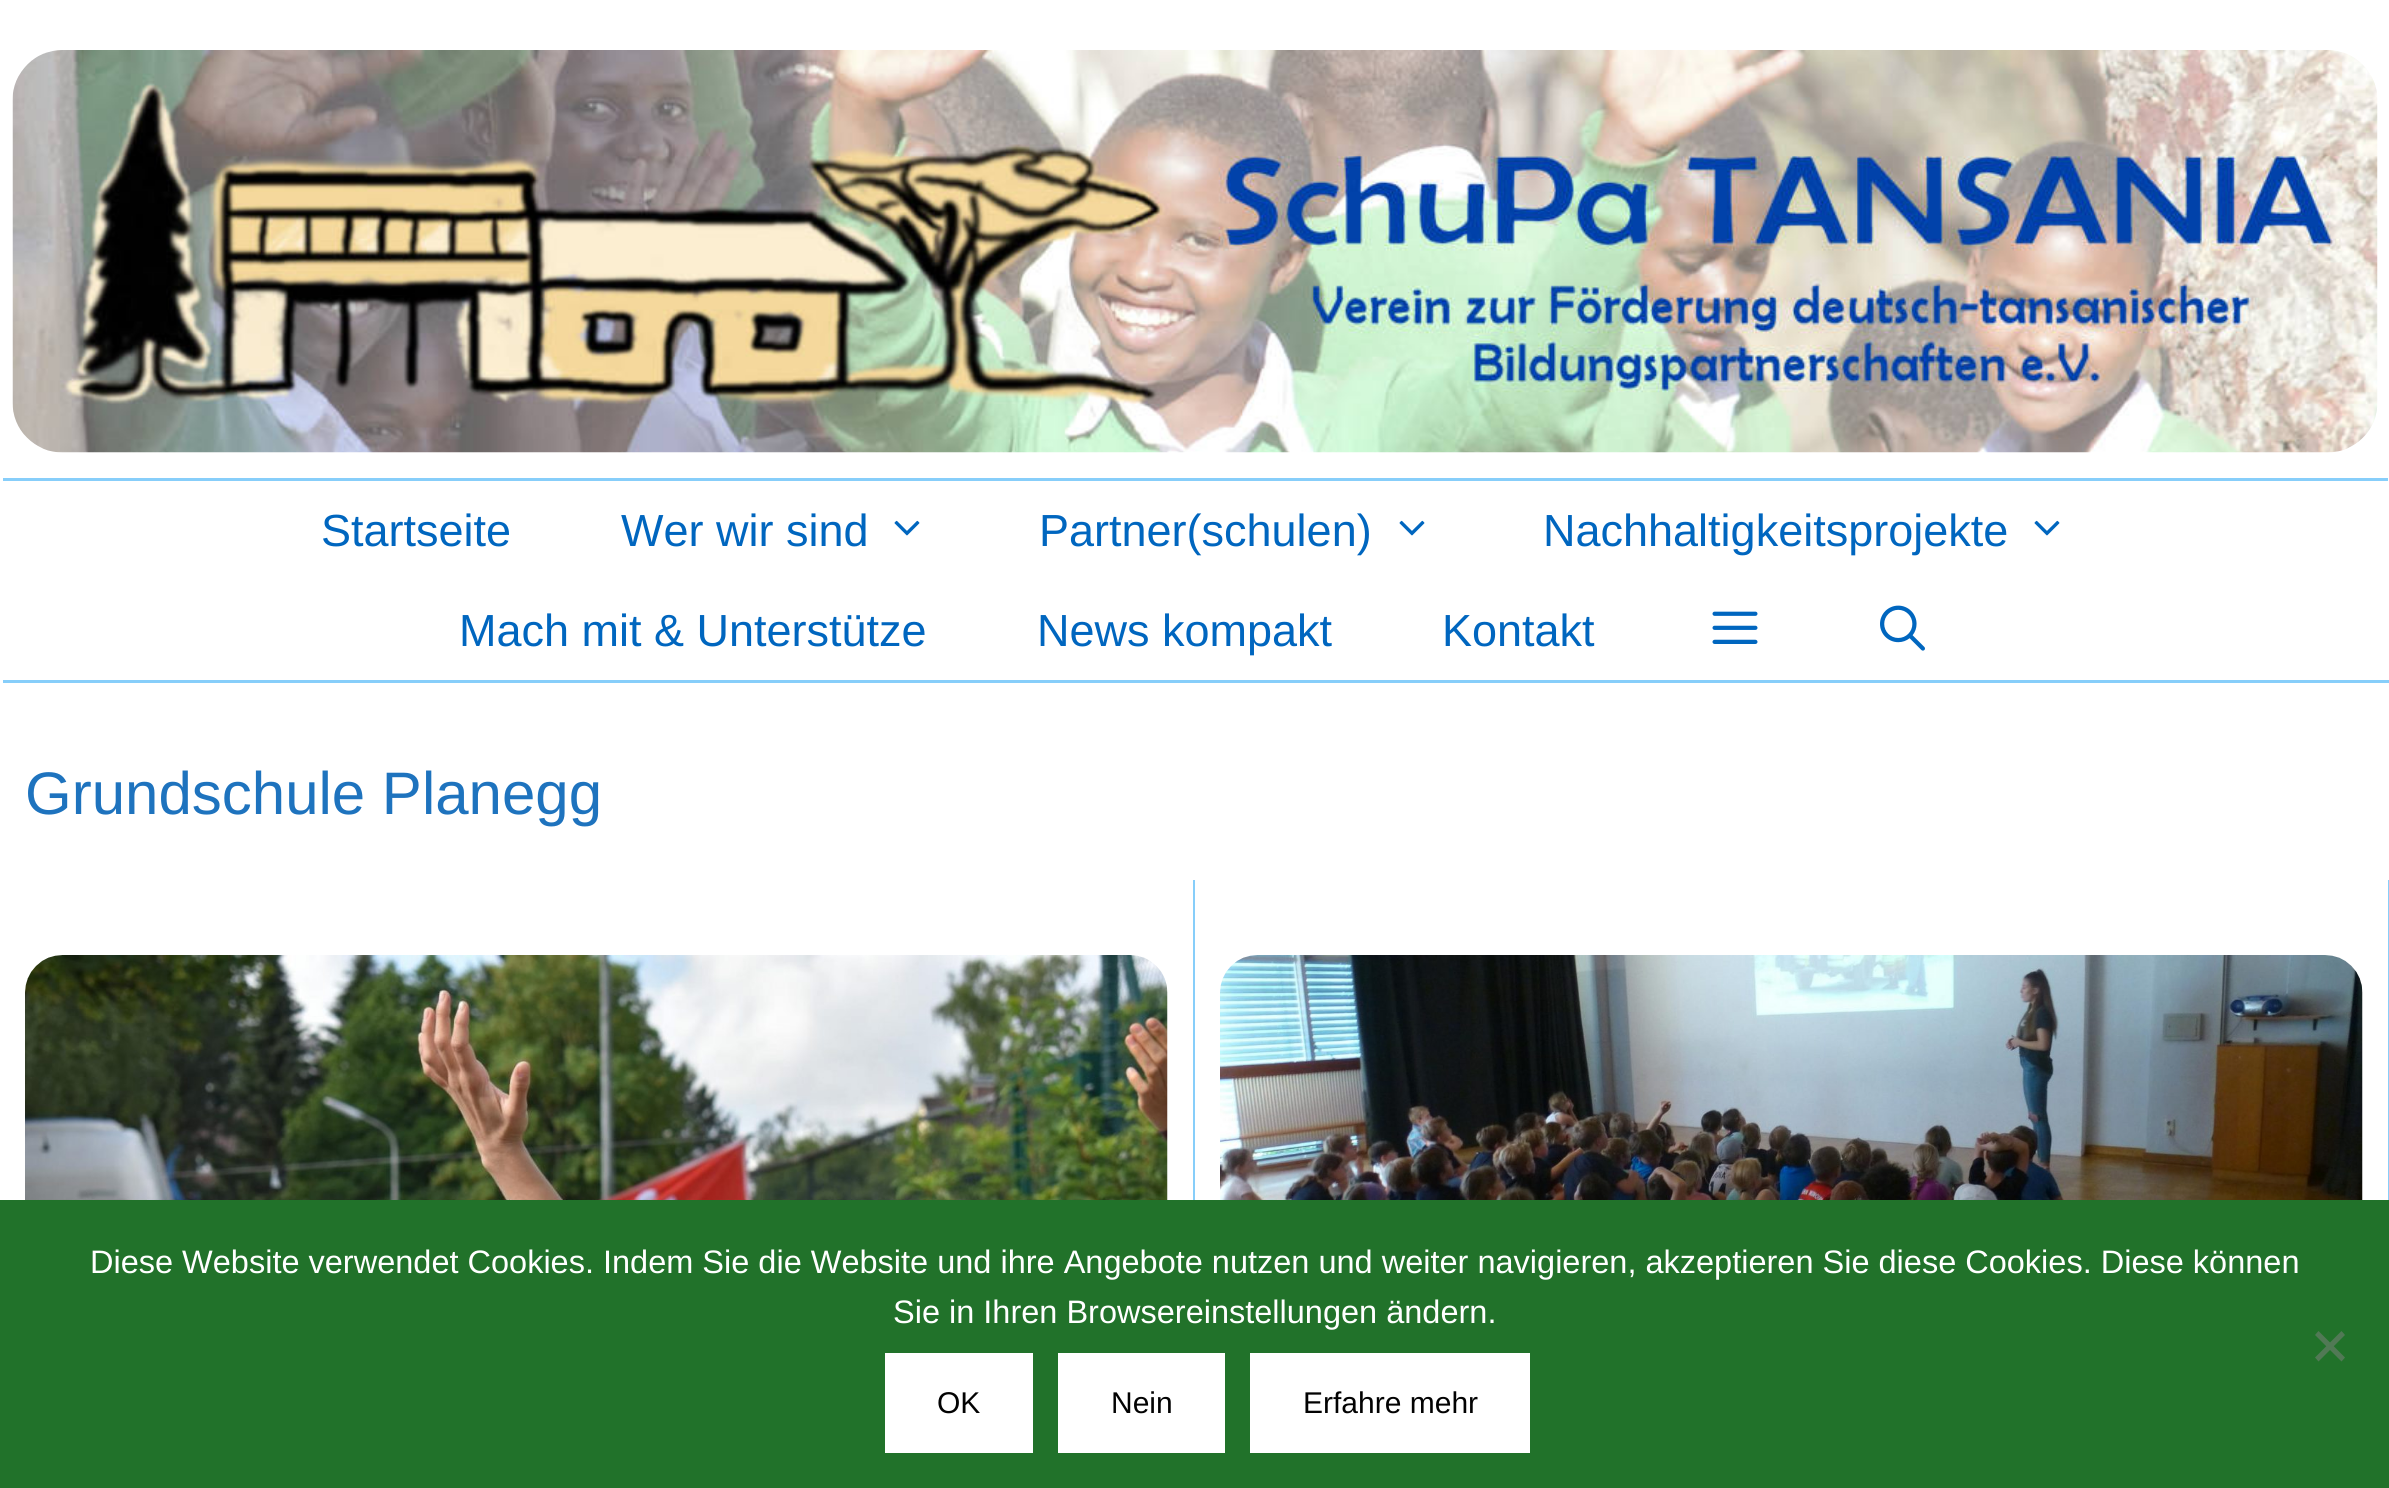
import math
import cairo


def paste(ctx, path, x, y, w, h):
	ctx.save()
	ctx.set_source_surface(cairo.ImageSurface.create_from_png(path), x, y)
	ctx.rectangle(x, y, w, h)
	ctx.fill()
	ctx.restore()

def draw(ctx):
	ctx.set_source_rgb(1, 1, 1)
	ctx.paint()
	paste(ctx, 'media/1.png', 12, 50, 2366, 403)
	ctx.set_source_rgb(0.529, 0.808, 0.98)
	ctx.rectangle(0, 478, 2389, 3)
	ctx.fill()
	ctx.set_source_rgb(1, 1, 1)
	ctx.rectangle(2388, 478, 1, 3)
	ctx.fill()
	ctx.set_source_rgb(0.529, 0.808, 0.98)
	ctx.rectangle(0, 680, 2389, 3)
	ctx.fill()
	ctx.set_source_rgb(1, 1, 1)
	ctx.rectangle(0, 478, 3, 205)
	ctx.fill()
	ctx.select_font_face('Liberation Sans')
	ctx.set_font_size(45)
	ctx.set_source_rgb(0, 0.4, 0.749)
	ctx.move_to(321, 546)
	ctx.show_text('Startseite')
	ctx.move_to(621, 546)
	ctx.show_text('Wer wir sind')
	paste(ctx, 'media/2.png', 894, 520, 26, 16)
	ctx.move_to(1039, 546)
	ctx.show_text('Partner(schulen)')
	paste(ctx, 'media/2.png', 1399, 520, 26, 16)
	ctx.move_to(1543, 546)
	ctx.show_text('Nachhaltigkeitsprojekte')
	paste(ctx, 'media/2.png', 2034, 520, 26, 16)
	for x, y, s in [
		(459, 646, 'Mach mit & Unterstütze'),
		(1037, 646, 'News kompakt'),
		(1442, 646, 'Kontakt'),
	]:
		ctx.move_to(x, y)
		ctx.show_text(s)
	paste(ctx, 'media/3.png', 1712, 611, 46, 33)
	paste(ctx, 'media/4.png', 1880, 605, 45, 46)
	ctx.set_font_size(60)
	ctx.set_source_rgb(0.118, 0.451, 0.745)
	ctx.move_to(25, 814)
	ctx.show_text('Grundschule Planegg')
	ctx.set_source_rgb(0.529, 0.808, 0.98)
	ctx.rectangle(1193, 880, 2, 320)
	ctx.fill()
	paste(ctx, 'media/5.png', 25, 955, 1143, 245)
	ctx.rectangle(2388, 880, 1, 320)
	ctx.fill()
	paste(ctx, 'media/6.png', 1220, 955, 1143, 245)
	ctx.set_source_rgb(0.129, 0.447, 0.165)
	ctx.rectangle(0, 1200, 2389, 288)
	ctx.fill()
	ctx.set_font_size(32.5)
	ctx.set_source_rgb(1, 1, 1)
	ctx.move_to(90, 1273)
	ctx.show_text('Diese Website verwendet Cookies. Indem Sie die Website und ihre Angebote nutzen und weiter navigieren, akzeptieren Sie diese Cookies. Diese können')
	ctx.move_to(893, 1323)
	ctx.show_text('Sie in Ihren Browsereinstellungen ändern.')
	ctx.set_source_rgb(0.318, 0.475, 0.333)
	ctx.new_path()
	ctx.move_to(2341.5, 1331)
	ctx.line_to(2345, 1335)
	ctx.line_to(2318.5, 1361.5)
	ctx.line_to(2315, 1357.5)
	ctx.close_path()
	ctx.fill()
	ctx.new_path()
	ctx.move_to(2315, 1335)
	ctx.line_to(2318.5, 1331)
	ctx.line_to(2345, 1357.5)
	ctx.line_to(2341.5, 1361.5)
	ctx.close_path()
	ctx.fill()
	ctx.set_source_rgb(1, 1, 1)
	ctx.rectangle(885, 1353, 148, 100)
	ctx.fill()
	ctx.set_font_size(30)
	ctx.set_source_rgb(0.008, 0.008, 0.008)
	ctx.move_to(937, 1413)
	ctx.show_text('OK')
	ctx.set_source_rgb(1, 1, 1)
	ctx.rectangle(1058, 1353, 167, 100)
	ctx.fill()
	ctx.set_source_rgb(0.008, 0.008, 0.008)
	ctx.move_to(1111, 1413)
	ctx.show_text('Nein')
	ctx.set_source_rgb(1, 1, 1)
	ctx.rectangle(1250, 1353, 280, 100)
	ctx.fill()
	ctx.set_source_rgb(0.008, 0.008, 0.008)
	ctx.move_to(1303, 1413)
	ctx.show_text('Erfahre mehr')


surface = cairo.ImageSurface(cairo.FORMAT_RGB24, 2389, 1488)
ctx = cairo.Context(surface)
options = cairo.FontOptions()
options.set_hint_metrics(cairo.HINT_METRICS_OFF)
options.set_hint_style(cairo.HINT_STYLE_NONE)
ctx.set_font_options(options)
ctx.set_miter_limit(4)
draw(ctx)
surface.write_to_png('image.png')
